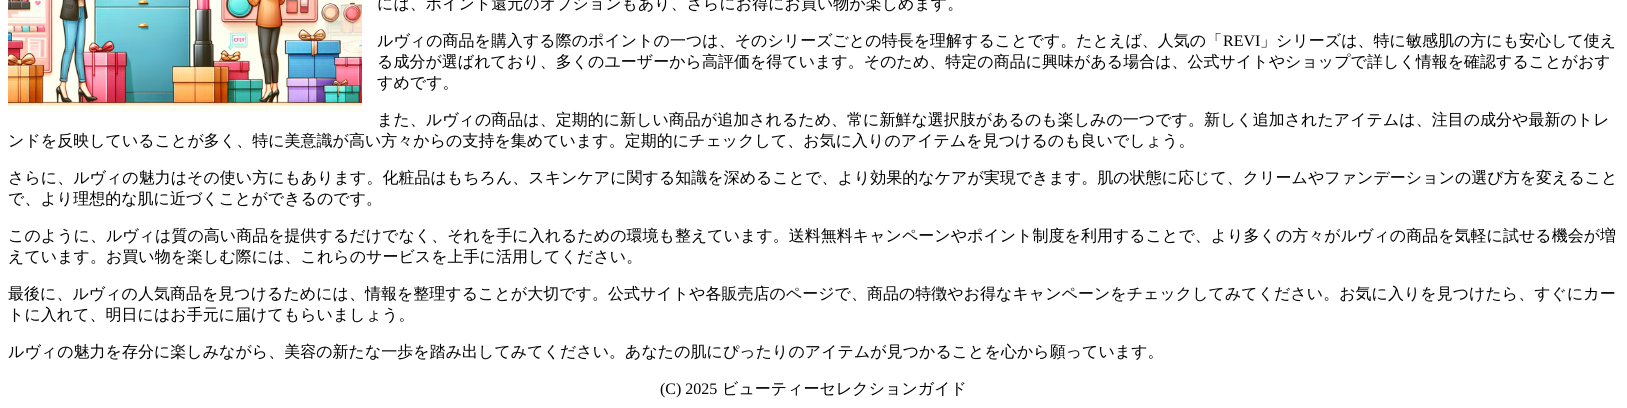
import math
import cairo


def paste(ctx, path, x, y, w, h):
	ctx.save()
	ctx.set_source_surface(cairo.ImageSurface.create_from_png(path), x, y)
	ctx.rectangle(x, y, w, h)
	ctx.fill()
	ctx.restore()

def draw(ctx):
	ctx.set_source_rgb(1, 1, 1)
	ctx.paint()
	paste(ctx, 'media/1.png', 8, 0, 354, 112)
	ctx.select_font_face('WenQuanYi Zen Hei Medium')
	ctx.set_font_size(16)
	ctx.set_source_rgb(0, 0, 0)
	ctx.move_to(377, 9)
	ctx.show_text('には、ポイント還元のオプションもあり、さらにお得にお買い物が楽しめます。')
	ctx.move_to(377, 46)
	ctx.show_text('ルヴィの商品を購入する際のポイントの一つは、そのシリーズごとの特長を理解することです。たとえば、人気の「')
	ctx.select_font_face('Liberation Serif')
	ctx.move_to(1223, 46)
	ctx.show_text('REVI')
	ctx.select_font_face('WenQuanYi Zen Hei Medium')
	for x, y, s in [
		(1260, 46, '」シリーズは、特に敏感肌の方にも安心して使え'),
		(377, 67, 'る成分が選ばれており、多くのユーザーから高評価を得ています。そのため、特定の商品に興味がある場合は、公式サイトやショップで詳しく情報を確認することがおす'),
		(377, 88, 'すめです。'),
		(377, 125, 'また、ルヴィの商品は、定期的に新しい商品が追加されるため、常に新鮮な選択肢があるのも楽しみの一つです。新しく追加されたアイテムは、注目の成分や最新のトレ'),
		(8, 146, 'ンドを反映していることが多く、特に美意識が高い方々からの支持を集めています。定期的にチェックして、お気に入りのアイテムを見つけるのも良いでしょう。'),
		(8, 183, 'さらに、ルヴィの魅力はその使い方にもあります。化粧品はもちろん、スキンケアに関する知識を深めることで、より効果的なケアが実現できます。肌の状態に応じて、クリームやファンデーションの選び方を変えること'),
		(8, 204, 'で、より理想的な肌に近づくことができるのです。'),
		(8, 241, 'このように、ルヴィは質の高い商品を提供するだけでなく、それを手に入れるための環境も整えています。送料無料キャンペーンやポイント制度を利用することで、より多くの方々がルヴィの商品を気軽に試せる機会が増'),
		(8, 262, 'えています。お買い物を楽しむ際には、これらのサービスを上手に活用してください。'),
		(8, 299, '最後に、ルヴィの人気商品を見つけるためには、情報を整理することが大切です。公式サイトや各販売店のページで、商品の特徴やお得なキャンペーンをチェックしてみてください。お気に入りを見つけたら、すぐにカー'),
		(8, 320, 'トに入れて、明日にはお手元に届けてもらいましょう。'),
		(8, 357, 'ルヴィの魅力を存分に楽しみながら、美容の新たな一歩を踏み出してみてください。あなたの肌にぴったりのアイテムが見つかることを心から願っています。'),
	]:
		ctx.move_to(x, y)
		ctx.show_text(s)
	ctx.select_font_face('Liberation Serif')
	ctx.move_to(660, 394)
	ctx.show_text('(C) 2025')
	ctx.select_font_face('WenQuanYi Zen Hei Medium')
	ctx.move_to(722, 394)
	ctx.show_text('ビューティーセレクションガイド')


surface = cairo.ImageSurface(cairo.FORMAT_RGB24, 1627, 408)
ctx = cairo.Context(surface)
options = cairo.FontOptions()
options.set_hint_metrics(cairo.HINT_METRICS_OFF)
options.set_hint_style(cairo.HINT_STYLE_NONE)
ctx.set_font_options(options)
ctx.set_miter_limit(4)
draw(ctx)
surface.write_to_png('image.png')
